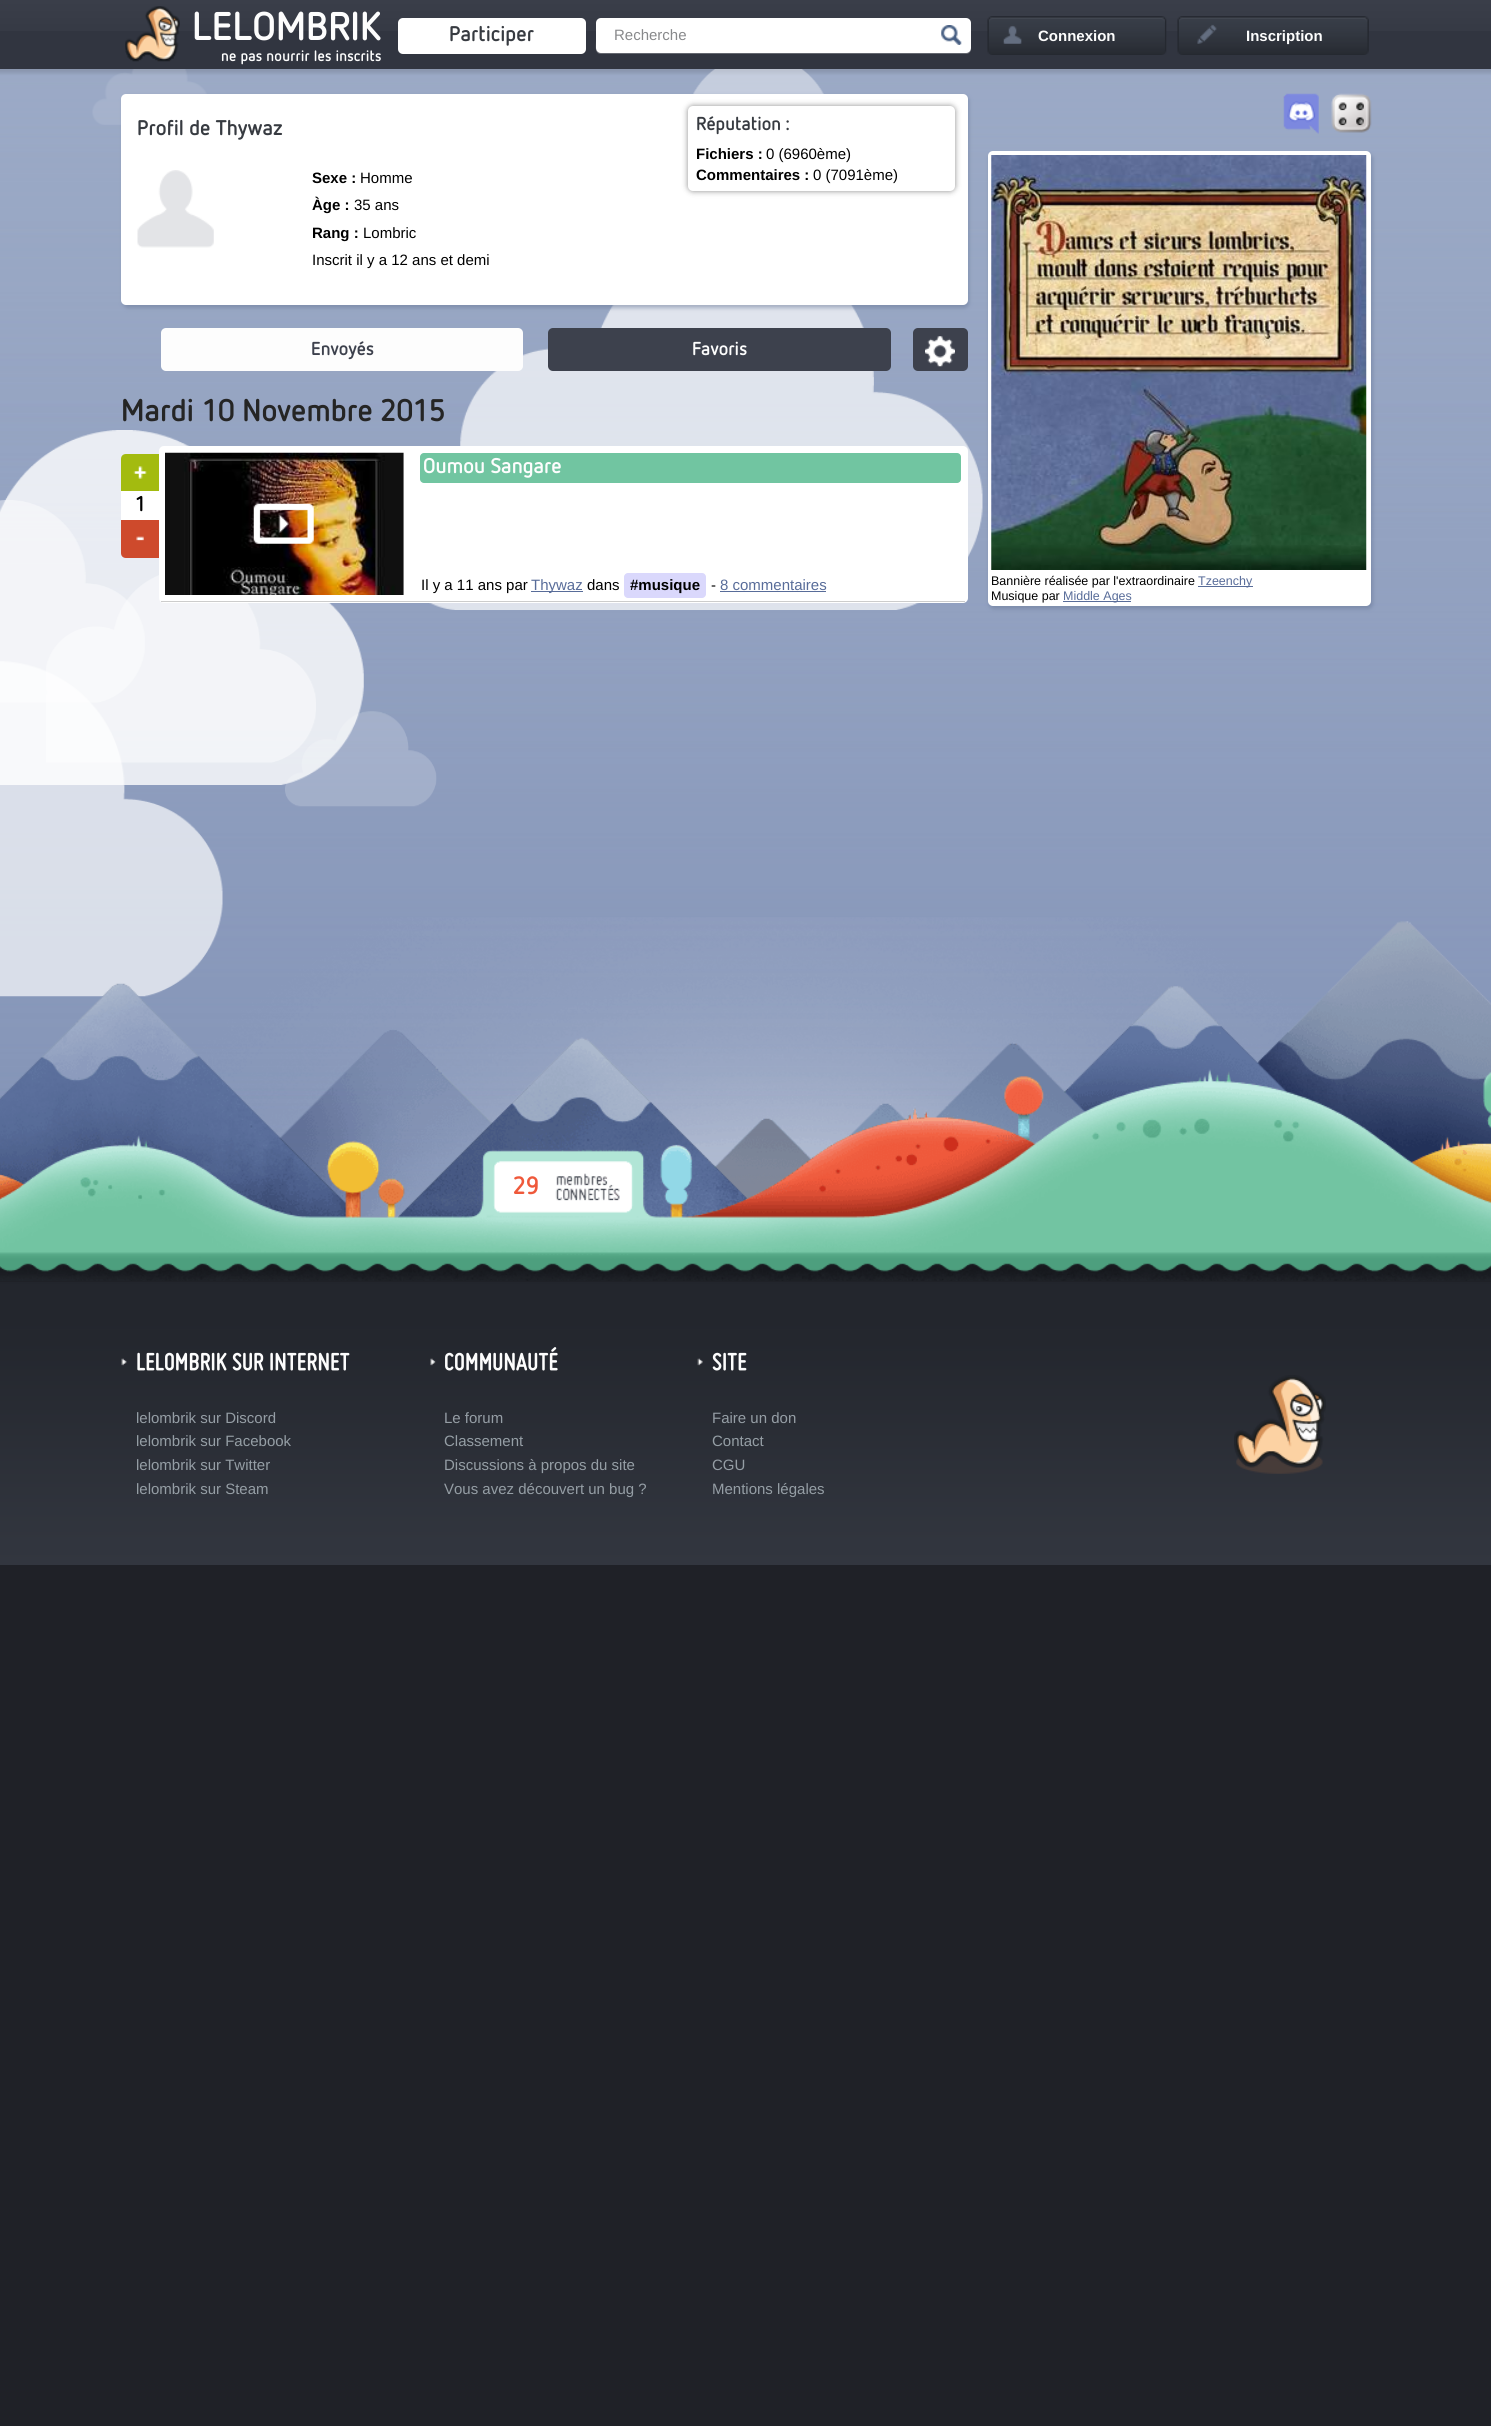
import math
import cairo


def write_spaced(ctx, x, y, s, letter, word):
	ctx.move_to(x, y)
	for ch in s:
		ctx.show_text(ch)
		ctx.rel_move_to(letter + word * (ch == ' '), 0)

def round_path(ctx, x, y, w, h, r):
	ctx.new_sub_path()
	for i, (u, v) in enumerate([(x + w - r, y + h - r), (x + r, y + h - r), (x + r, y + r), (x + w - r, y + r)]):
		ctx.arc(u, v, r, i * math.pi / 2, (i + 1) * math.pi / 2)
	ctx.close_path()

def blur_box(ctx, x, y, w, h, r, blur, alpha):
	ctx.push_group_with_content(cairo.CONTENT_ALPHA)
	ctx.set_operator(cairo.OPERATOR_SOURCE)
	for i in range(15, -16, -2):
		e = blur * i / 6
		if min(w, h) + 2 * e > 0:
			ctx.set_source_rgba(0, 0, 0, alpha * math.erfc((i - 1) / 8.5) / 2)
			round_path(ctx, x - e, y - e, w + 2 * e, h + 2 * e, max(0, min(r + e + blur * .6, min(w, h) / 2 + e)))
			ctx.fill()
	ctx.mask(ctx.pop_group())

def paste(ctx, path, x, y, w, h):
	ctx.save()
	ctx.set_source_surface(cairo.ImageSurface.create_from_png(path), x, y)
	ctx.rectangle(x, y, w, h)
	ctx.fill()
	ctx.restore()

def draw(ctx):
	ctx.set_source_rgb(0.122, 0.129, 0.153)
	ctx.paint()
	ctx.set_source_rgb(0.192, 0.208, 0.251)
	ctx.rectangle(0, 31, 1491, 38)
	ctx.fill()
	paste(ctx, 'media/1.png', 0, 0, 1491, 31)
	paste(ctx, 'media/2.png', 125, 6, 55, 56)
	ctx.select_font_face('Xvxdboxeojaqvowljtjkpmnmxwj', cairo.FONT_SLANT_NORMAL, cairo.FONT_WEIGHT_BOLD)
	ctx.set_font_size(40)
	ctx.set_source_rgb(0.992, 0.992, 0.992)
	ctx.move_to(192, 40)
	ctx.show_text('LELOMBRIK')
	ctx.set_font_size(15)
	write_spaced(ctx, 221, 61, 'ne pas nourrir les inscrits', 0.15, 0)
	ctx.set_source_rgb(1, 1, 1)
	round_path(ctx, 398, 18, 188, 36, 5)
	ctx.fill()
	ctx.set_font_size(21.25)
	ctx.set_source_rgb(0.216, 0.231, 0.255)
	ctx.move_to(449, 41)
	ctx.show_text('Participer')
	ctx.set_source_rgb(0.396, 0.408, 0.439)
	ctx.new_path()
	ctx.move_to(596, 22)
	ctx.line_to(596, 41)
	ctx.curve_to(596, 45, 594, 54, 601, 54)
	ctx.line_to(966, 54)
	ctx.curve_to(969, 54, 971, 52, 971, 49)
	ctx.curve_to(970, 51, 968, 52, 966, 52)
	ctx.line_to(601, 52)
	ctx.curve_to(598, 52, 596, 50, 596, 48)
	ctx.close_path()
	ctx.fill()
	ctx.set_source_rgb(1, 1, 1)
	round_path(ctx, 596, 18, 375, 35, 5)
	ctx.fill()
	ctx.select_font_face('Liberation Sans')
	ctx.set_font_size(15)
	ctx.set_source_rgb(0.533, 0.537, 0.545)
	ctx.move_to(614, 40)
	ctx.show_text('Recherche')
	paste(ctx, 'media/3.png', 941, 25, 21, 20)
	paste(ctx, 'media/4.png', 987, 16, 180, 39)
	ctx.select_font_face('Liberation Sans', cairo.FONT_SLANT_NORMAL, cairo.FONT_WEIGHT_BOLD)
	ctx.set_source_rgb(0.992, 0.992, 0.992)
	ctx.move_to(1038, 41)
	ctx.show_text('Connexion')
	paste(ctx, 'media/5.png', 1177, 16, 192, 39)
	ctx.move_to(1246, 41)
	ctx.show_text('Inscription')
	paste(ctx, 'media/11.png', 0, 69, 1491, 1149)
	paste(ctx, 'media/6.png', 693, 69, 131, 25)
	paste(ctx, 'media/24.png', 0, 661, 223, 336)
	paste(ctx, 'media/22.png', 0, 430, 364, 355)
	paste(ctx, 'media/7.png', 0, 500, 145, 203)
	paste(ctx, 'media/8.png', 46, 575, 270, 188)
	paste(ctx, 'media/9.png', 92, 69, 115, 56)
	paste(ctx, 'media/10.png', 285, 711, 152, 96)
	paste(ctx, 'media/23.png', 429, 305, 554, 305)
	ctx.set_source_rgb(0.404, 0.467, 0.588)
	blur_box(ctx, 123, 96, 846, 212, 5, 2, 0.5)
	ctx.set_source_rgb(1, 1, 1)
	round_path(ctx, 121, 94, 847, 211, 5)
	ctx.fill()
	ctx.select_font_face('Xvxdboxeojaqvowljtjkpmnmxwj', cairo.FONT_SLANT_NORMAL, cairo.FONT_WEIGHT_BOLD)
	ctx.set_font_size(21.25)
	ctx.set_source_rgb(0.216, 0.231, 0.255)
	ctx.move_to(137, 135)
	ctx.show_text('Profil de Thywaz')
	ctx.set_source_rgb(0.098, 0.098, 0.098)
	blur_box(ctx, 688, 106, 267, 85, 5, 3, 0.5)
	ctx.set_source_rgb(1, 1, 1)
	round_path(ctx, 688, 106, 267, 85, 5)
	ctx.fill()
	ctx.set_font_size(18.75)
	ctx.set_source_rgb(0.216, 0.231, 0.255)
	ctx.move_to(696, 130)
	ctx.show_text('Réputation :')
	ctx.select_font_face('Liberation Sans', cairo.FONT_SLANT_NORMAL, cairo.FONT_WEIGHT_BOLD)
	ctx.set_font_size(15)
	ctx.set_source_rgb(0, 0, 0)
	ctx.move_to(696, 159)
	ctx.show_text('Fichiers :')
	ctx.select_font_face('Liberation Sans')
	ctx.move_to(766, 159)
	ctx.show_text('0 (6960ème)')
	ctx.select_font_face('Liberation Sans', cairo.FONT_SLANT_NORMAL, cairo.FONT_WEIGHT_BOLD)
	ctx.move_to(696, 180)
	ctx.show_text('Commentaires :')
	ctx.select_font_face('Liberation Sans')
	ctx.move_to(813, 180)
	ctx.show_text('0 (7091ème)')
	paste(ctx, 'media/12.png', 137, 170, 77, 78)
	ctx.select_font_face('Liberation Sans', cairo.FONT_SLANT_NORMAL, cairo.FONT_WEIGHT_BOLD)
	ctx.move_to(312, 183)
	ctx.show_text('Sexe :')
	ctx.select_font_face('Liberation Sans')
	ctx.move_to(360, 183)
	ctx.show_text('Homme')
	ctx.select_font_face('Liberation Sans', cairo.FONT_SLANT_NORMAL, cairo.FONT_WEIGHT_BOLD)
	ctx.move_to(312, 210)
	ctx.show_text('Àge :')
	ctx.select_font_face('Liberation Sans')
	ctx.move_to(354, 210)
	ctx.show_text('35 ans')
	ctx.select_font_face('Liberation Sans', cairo.FONT_SLANT_NORMAL, cairo.FONT_WEIGHT_BOLD)
	ctx.move_to(312, 238)
	ctx.show_text('Rang :')
	ctx.select_font_face('Liberation Sans')
	ctx.move_to(363, 238)
	ctx.show_text('Lombric')
	ctx.move_to(312, 265)
	ctx.show_text('Inscrit il y a 12 ans et demi')
	ctx.set_source_rgb(0.992, 0.992, 0.992)
	round_path(ctx, 161, 328, 362, 43, 5)
	ctx.fill()
	ctx.select_font_face('Xvxdboxeojaqvowljtjkpmnmxwj', cairo.FONT_SLANT_NORMAL, cairo.FONT_WEIGHT_BOLD)
	ctx.set_font_size(18.75)
	ctx.set_source_rgb(0.239, 0.255, 0.302)
	ctx.move_to(311, 355)
	ctx.show_text('Envoyés')
	round_path(ctx, 548, 328, 343, 43, 5)
	ctx.fill()
	ctx.set_source_rgb(0.992, 0.992, 0.992)
	ctx.move_to(692, 355)
	ctx.show_text('Favoris')
	ctx.set_source_rgb(0.239, 0.255, 0.302)
	round_path(ctx, 913, 328, 55, 43, 5)
	ctx.fill()
	paste(ctx, 'media/13.png', 925, 336, 30, 31)
	ctx.set_font_size(31.25)
	ctx.set_source_rgb(0.145, 0.145, 0.145)
	ctx.move_to(121, 421)
	ctx.show_text('Mardi 10 Novembre 2015')
	ctx.set_source_rgb(1, 1, 1)
	round_path(ctx, 159, 446, 809, 157, 5)
	ctx.fill()
	ctx.set_source_rgb(0.8, 0.8, 0.8)
	ctx.rectangle(161, 601, 804, 1)
	ctx.fill()
	ctx.set_source_rgb(0.639, 0.733, 0.059)
	ctx.new_path()
	ctx.move_to(126, 454)
	ctx.line_to(159, 454)
	ctx.line_to(159, 491)
	ctx.line_to(121, 491)
	ctx.line_to(121, 459)
	ctx.curve_to(121, 456, 123, 454, 126, 454)
	ctx.close_path()
	ctx.fill()
	paste(ctx, 'media/14.png', 133, 466, 14, 13)
	ctx.set_source_rgb(1, 1, 1)
	ctx.rectangle(121, 491, 38, 29)
	ctx.fill()
	ctx.set_font_size(21.25)
	ctx.set_source_rgb(0, 0, 0)
	ctx.move_to(135, 511)
	ctx.show_text('1')
	ctx.set_source_rgb(0.808, 0.29, 0.173)
	ctx.new_path()
	ctx.move_to(121, 520)
	ctx.line_to(159, 520)
	ctx.line_to(159, 558)
	ctx.line_to(126, 558)
	ctx.curve_to(123, 558, 121, 556, 121, 553)
	ctx.close_path()
	ctx.fill()
	paste(ctx, 'media/15.png', 136, 536, 8, 5)
	paste(ctx, 'media/16.png', 165, 452, 239, 143)
	paste(ctx, 'media/17.png', 253, 503, 61, 41)
	ctx.set_source_rgb(0.443, 0.773, 0.631)
	round_path(ctx, 420, 453, 541, 30, 4)
	ctx.fill()
	ctx.set_source_rgb(0.992, 0.992, 0.992)
	ctx.move_to(423, 473)
	ctx.show_text('Oumou Sangare')
	ctx.select_font_face('Liberation Sans')
	ctx.set_font_size(15)
	ctx.set_source_rgb(0, 0, 0)
	ctx.move_to(421, 590)
	ctx.show_text('Il y a 11 ans par')
	ctx.set_source_rgb(0.345, 0.424, 0.6)
	ctx.rectangle(531, 591, 52, 1)
	ctx.fill()
	ctx.move_to(531, 590)
	ctx.show_text('Thywaz')
	ctx.set_source_rgb(0, 0, 0)
	ctx.move_to(587, 590)
	ctx.show_text('dans')
	ctx.set_source_rgb(0.855, 0.847, 0.988)
	round_path(ctx, 624, 573, 82, 25, 4)
	ctx.fill()
	ctx.select_font_face('Liberation Sans', cairo.FONT_SLANT_NORMAL, cairo.FONT_WEIGHT_BOLD)
	ctx.set_source_rgb(0, 0, 0)
	ctx.move_to(630, 590)
	ctx.show_text('#musique')
	ctx.select_font_face('Liberation Sans')
	ctx.move_to(711, 590)
	ctx.show_text('-')
	ctx.set_source_rgb(0.345, 0.424, 0.6)
	ctx.move_to(720, 590)
	ctx.show_text('8 commentaires')
	ctx.rectangle(720, 591, 106, 1)
	ctx.fill()
	paste(ctx, 'media/18.png', 1283, 93, 36, 41)
	paste(ctx, 'media/19.png', 1331, 93, 41, 40)
	ctx.set_source_rgb(0.404, 0.467, 0.588)
	blur_box(ctx, 989, 154, 384, 455, 5, 2, 0.5)
	ctx.set_source_rgb(1, 1, 1)
	round_path(ctx, 988, 151, 383, 455, 5)
	ctx.fill()
	paste(ctx, 'media/20.png', 991, 155, 376, 415)
	ctx.set_font_size(12.5)
	ctx.set_source_rgb(0, 0, 0)
	ctx.move_to(991, 585)
	ctx.show_text('Bannière réalisée par l\'extraordinaire')
	ctx.set_source_rgb(0.345, 0.424, 0.6)
	ctx.rectangle(1198, 586, 55, 1)
	ctx.fill()
	ctx.move_to(1198, 585)
	ctx.show_text('Tzeenchy')
	ctx.set_source_rgb(0, 0, 0)
	ctx.move_to(991, 600)
	ctx.show_text('Musique par')
	ctx.set_source_rgb(0.345, 0.424, 0.6)
	ctx.rectangle(1063, 601, 68, 1)
	ctx.fill()
	ctx.move_to(1063, 600)
	ctx.show_text('Middle Ages')
	paste(ctx, 'media/21.png', 0, 917, 1491, 364)
	ctx.select_font_face('Xvxdboxeojaqvowljtjkpmnmxwj', cairo.FONT_SLANT_NORMAL, cairo.FONT_WEIGHT_BOLD)
	ctx.set_font_size(25)
	ctx.set_source_rgb(0.937, 0.349, 0.231)
	ctx.move_to(513, 1194)
	ctx.show_text('29')
	paste(ctx, 'media/25.png', 0, 1282, 1491, 283)
	paste(ctx, 'media/26.png', 121, 1358, 6, 8)
	ctx.select_font_face('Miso', cairo.FONT_SLANT_ITALIC, cairo.FONT_WEIGHT_BOLD)
	ctx.set_font_size(26.25)
	ctx.set_source_rgb(0.992, 0.992, 0.992)
	ctx.move_to(136, 1370)
	ctx.show_text('LELOMBRIK SUR INTERNET')
	ctx.select_font_face('Liberation Sans')
	ctx.set_font_size(15)
	ctx.set_source_rgb(0.584, 0.62, 0.647)
	for x, y, s in [
		(136, 1423, 'lelombrik sur Discord'),
		(136, 1446, 'lelombrik sur Facebook'),
		(136, 1470, 'lelombrik sur Twitter'),
		(136, 1494, 'lelombrik sur Steam'),
	]:
		ctx.move_to(x, y)
		ctx.show_text(s)
	paste(ctx, 'media/27.png', 430, 1358, 6, 8)
	ctx.select_font_face('Miso', cairo.FONT_SLANT_ITALIC, cairo.FONT_WEIGHT_BOLD)
	ctx.set_font_size(26.25)
	ctx.set_source_rgb(0.992, 0.992, 0.992)
	ctx.move_to(444, 1370)
	ctx.show_text('COMMUNAUTÉ')
	ctx.select_font_face('Liberation Sans')
	ctx.set_font_size(15)
	ctx.set_source_rgb(0.584, 0.62, 0.647)
	for x, y, s in [
		(444, 1423, 'Le forum'),
		(444, 1446, 'Classement'),
		(444, 1470, 'Discussions à propos du site'),
		(444, 1494, 'Vous avez découvert un bug ?'),
	]:
		ctx.move_to(x, y)
		ctx.show_text(s)
	paste(ctx, 'media/28.png', 697, 1358, 6, 8)
	ctx.select_font_face('Miso', cairo.FONT_SLANT_ITALIC, cairo.FONT_WEIGHT_BOLD)
	ctx.set_font_size(26.25)
	ctx.set_source_rgb(0.992, 0.992, 0.992)
	ctx.move_to(712, 1370)
	ctx.show_text('SITE')
	ctx.select_font_face('Liberation Sans')
	ctx.set_font_size(15)
	ctx.set_source_rgb(0.584, 0.62, 0.647)
	for x, y, s in [
		(712, 1423, 'Faire un don'),
		(712, 1446, 'Contact'),
		(712, 1470, 'CGU'),
		(712, 1494, 'Mentions légales'),
	]:
		ctx.move_to(x, y)
		ctx.show_text(s)
	paste(ctx, 'media/29.png', 1234, 1375, 92, 99)


surface = cairo.ImageSurface(cairo.FORMAT_RGB24, 1491, 2426)
ctx = cairo.Context(surface)
options = cairo.FontOptions()
options.set_hint_metrics(cairo.HINT_METRICS_OFF)
options.set_hint_style(cairo.HINT_STYLE_NONE)
ctx.set_font_options(options)
ctx.set_miter_limit(4)
draw(ctx)
surface.write_to_png('image.png')
